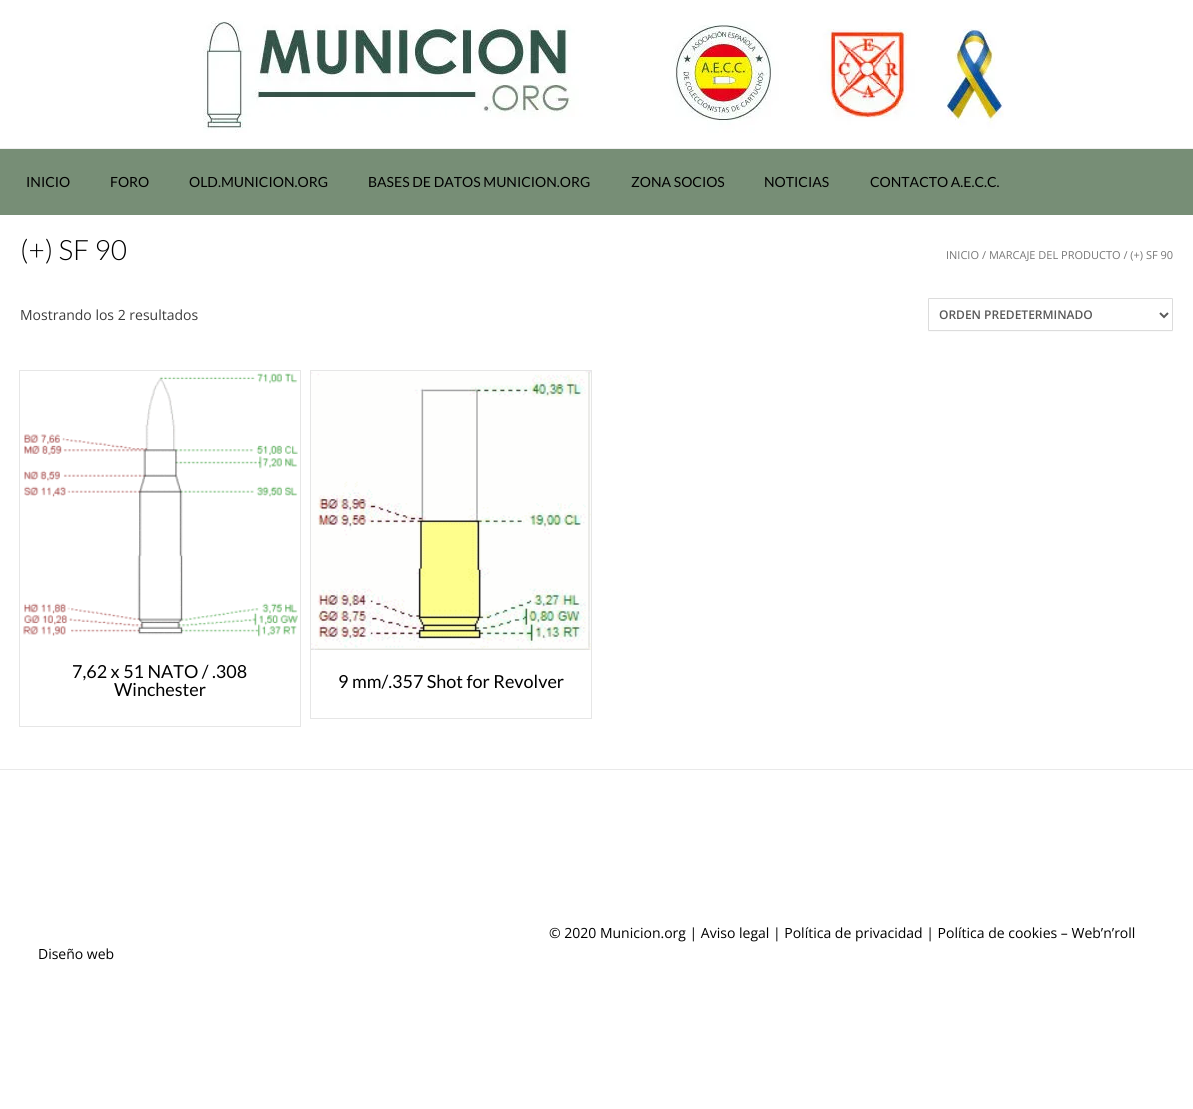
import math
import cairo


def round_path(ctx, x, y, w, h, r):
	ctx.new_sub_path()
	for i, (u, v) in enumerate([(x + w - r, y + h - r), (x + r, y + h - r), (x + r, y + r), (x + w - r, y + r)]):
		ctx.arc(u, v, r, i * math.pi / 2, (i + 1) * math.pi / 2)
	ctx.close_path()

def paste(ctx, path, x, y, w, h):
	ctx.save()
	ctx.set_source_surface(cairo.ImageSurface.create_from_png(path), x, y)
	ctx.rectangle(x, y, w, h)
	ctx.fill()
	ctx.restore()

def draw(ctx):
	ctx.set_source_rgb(1, 1, 1)
	ctx.paint()
	paste(ctx, 'media/1.png', 203, 21, 801, 112)
	ctx.set_source_rgb(0.467, 0.557, 0.463)
	ctx.rectangle(0, 149, 1193, 66)
	ctx.fill()
	ctx.set_source_rgb(0.937, 0.937, 0.937)
	ctx.rectangle(0, 148, 1193, 1)
	ctx.fill()
	ctx.select_font_face('Lato')
	ctx.set_font_size(14)
	ctx.set_source_rgb(0, 0, 0)
	for x, y, s in [
		(26, 187, 'INICIO'),
		(110, 187, 'FORO'),
		(189, 187, 'OLD.MUNICION.ORG'),
		(368, 187, 'BASES DE DATOS MUNICION.ORG'),
		(631, 187, 'ZONA SOCIOS'),
		(764, 187, 'NOTICIAS'),
		(870, 187, 'CONTACTO A.E.C.C.'),
	]:
		ctx.move_to(x, y)
		ctx.show_text(s)
	ctx.select_font_face('Lato Light')
	ctx.set_font_size(28)
	ctx.move_to(20, 260)
	ctx.show_text('(+) SF 90')
	ctx.select_font_face('Open Sans')
	ctx.set_font_size(11)
	ctx.set_source_rgb(0.463, 0.463, 0.463)
	ctx.move_to(946, 259)
	ctx.show_text('INICIO')
	ctx.move_to(982, 259)
	ctx.show_text('/ MARCAJE DEL PRODUCTO / (+) SF 90')
	ctx.set_font_size(14)
	ctx.set_source_rgb(0.235, 0.235, 0.235)
	ctx.move_to(20, 320)
	ctx.show_text('Mostrando los 2 resultados')
	ctx.set_source_rgb(0.98, 0.98, 0.98)
	ctx.new_path()
	ctx.move_to(928, 330)
	ctx.curve_to(928, 331, 928, 332, 929, 332)
	ctx.line_to(1172, 332)
	ctx.curve_to(1173, 332, 1173, 331, 1173, 330)
	ctx.line_to(1172, 331)
	ctx.line_to(929, 331)
	ctx.close_path()
	ctx.fill()
	round_path(ctx, 928.5, 298.5, 244, 32, 0.5)
	ctx.set_source_rgb(0.863, 0.863, 0.863)
	ctx.set_line_width(1)
	ctx.stroke()
	ctx.new_path()
	ctx.move_to(1160, 313)
	ctx.line_to(1164, 317)
	ctx.line_to(1168, 313)
	ctx.set_source_rgb(0.349, 0.349, 0.349)
	ctx.set_line_width(2)
	ctx.stroke()
	ctx.select_font_face('Open Sans SemiBold')
	ctx.set_font_size(12)
	ctx.move_to(939, 319)
	ctx.show_text('ORDEN PREDETERMINADO')
	ctx.rectangle(19.5, 370.5, 281, 356)
	ctx.set_source_rgb(0.902, 0.902, 0.902)
	ctx.set_line_width(1)
	ctx.stroke()
	paste(ctx, 'media/2.png', 23, 373, 275, 264)
	ctx.select_font_face('Lato')
	ctx.set_font_size(18)
	ctx.set_source_rgb(0, 0, 0)
	ctx.move_to(72, 678)
	ctx.show_text('7,62 x 51 NATO / .308')
	ctx.move_to(114, 696)
	ctx.show_text('Winchester')
	ctx.rectangle(310.5, 370.5, 281, 348)
	ctx.set_source_rgb(0.902, 0.902, 0.902)
	ctx.stroke()
	paste(ctx, 'media/3.png', 311, 371, 280, 279)
	ctx.set_source_rgb(0, 0, 0)
	ctx.move_to(338, 688)
	ctx.show_text('9 mm/.357 Shot for Revolver')
	ctx.set_source_rgb(0.914, 0.914, 0.914)
	ctx.rectangle(0, 769, 1193, 1)
	ctx.fill()
	ctx.select_font_face('Open Sans')
	ctx.set_font_size(14)
	ctx.set_source_rgb(0, 0, 0)
	ctx.move_to(549, 938)
	ctx.show_text('© 2020 Municion.org | Aviso legal | Política de privacidad | Política de cookies – Web’n’roll')
	ctx.move_to(38, 959)
	ctx.show_text('Diseño web')


surface = cairo.ImageSurface(cairo.FORMAT_RGB24, 1193, 1109)
ctx = cairo.Context(surface)
options = cairo.FontOptions()
options.set_hint_metrics(cairo.HINT_METRICS_OFF)
options.set_hint_style(cairo.HINT_STYLE_NONE)
ctx.set_font_options(options)
ctx.set_miter_limit(4)
draw(ctx)
surface.write_to_png('image.png')
